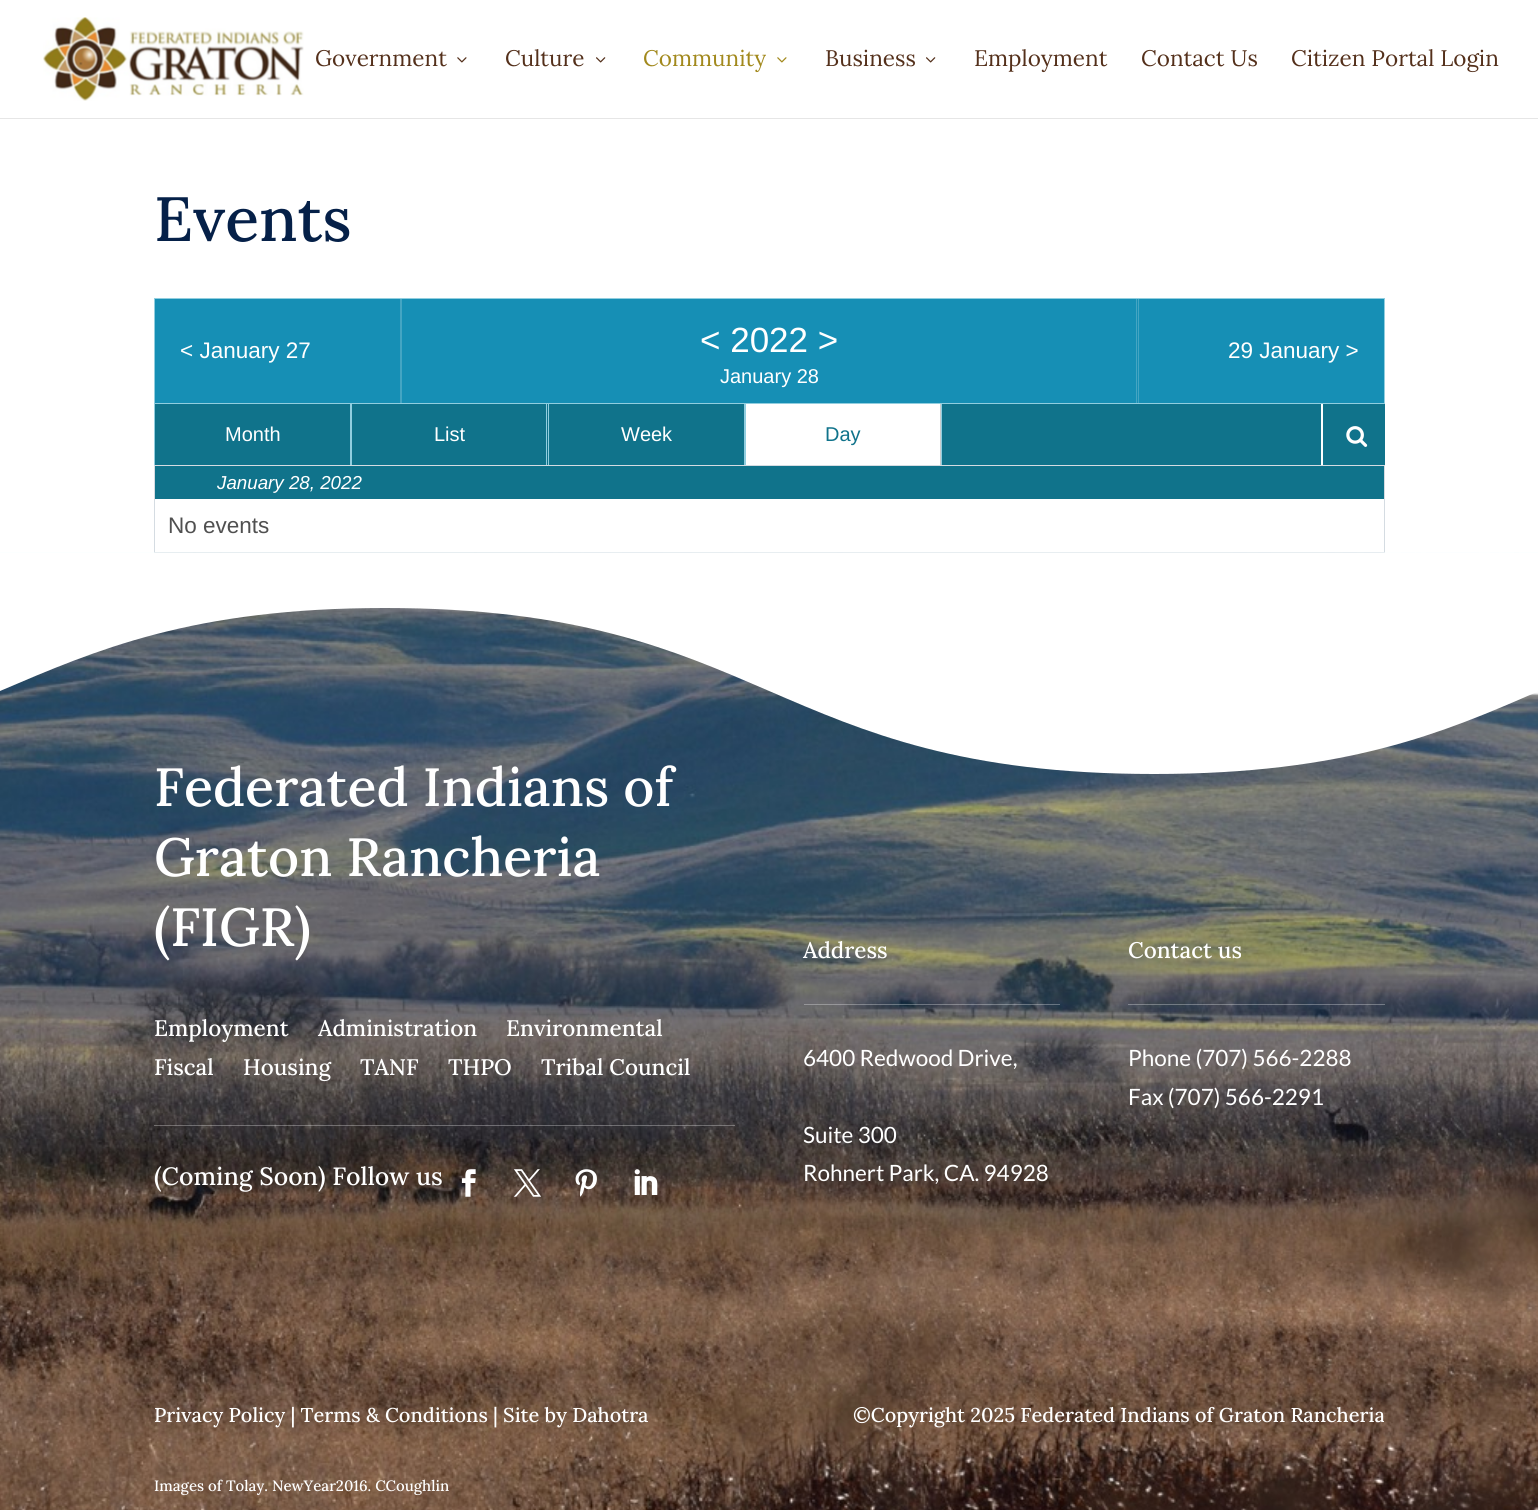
import math
import cairo


def paste(ctx, path, x, y, w, h):
	ctx.save()
	ctx.set_source_surface(cairo.ImageSurface.create_from_png(path), x, y)
	ctx.rectangle(x, y, w, h)
	ctx.fill()
	ctx.restore()

def draw(ctx):
	ctx.set_source_rgb(1, 1, 1)
	ctx.paint()
	ctx.set_source_rgb(0.902, 0.902, 0.902)
	ctx.new_path()
	ctx.move_to(0, 118)
	ctx.line_to(0, 119)
	ctx.line_to(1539, 119)
	ctx.line_to(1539, 1)
	ctx.line_to(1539, 118)
	ctx.close_path()
	ctx.fill()
	paste(ctx, 'media/1.png', 43, 17, 261, 84)
	ctx.select_font_face('Lora')
	ctx.set_font_size(22.5)
	ctx.set_source_rgb(0.329, 0.188, 0.106)
	ctx.move_to(315, 66)
	ctx.show_text('Government')
	paste(ctx, 'media/2.png', 457, 57, 10, 6)
	ctx.move_to(505, 66)
	ctx.show_text('Culture')
	paste(ctx, 'media/3.png', 596, 57, 10, 6)
	ctx.set_source_rgb(0.635, 0.537, 0.114)
	ctx.move_to(643, 66)
	ctx.show_text('Community')
	paste(ctx, 'media/4.png', 777, 57, 10, 6)
	ctx.set_source_rgb(0.329, 0.188, 0.106)
	ctx.move_to(825, 66)
	ctx.show_text('Business')
	paste(ctx, 'media/3.png', 926, 57, 10, 6)
	for x, y, s in [
		(974, 66, 'Employment'),
		(1141, 66, 'Contact Us'),
		(1291, 66, 'Citizen Portal Login'),
	]:
		ctx.move_to(x, y)
		ctx.show_text(s)
	ctx.select_font_face('Lora Medium')
	ctx.set_font_size(62.5)
	ctx.set_source_rgb(0.02, 0.125, 0.282)
	ctx.move_to(154, 241)
	ctx.show_text('Events')
	ctx.set_source_rgb(0.086, 0.561, 0.71)
	ctx.rectangle(154.5, 298.5, 1230, 105)
	ctx.fill_preserve()
	ctx.set_source_rgb(0.569, 0.808, 0.875)
	ctx.set_line_width(1)
	ctx.stroke()
	ctx.set_source_rgb(0.267, 0.647, 0.765)
	ctx.rectangle(400, 299, 2, 104)
	ctx.fill()
	ctx.select_font_face('Liberation Sans')
	ctx.set_font_size(22.5)
	ctx.set_source_rgb(1, 1, 1)
	ctx.move_to(180, 358)
	ctx.show_text('< January 27')
	ctx.set_source_rgb(0.267, 0.647, 0.765)
	ctx.rectangle(1136, 299, 1, 104)
	ctx.fill()
	ctx.set_font_size(35)
	ctx.set_source_rgb(1, 1, 1)
	ctx.move_to(700, 352)
	ctx.show_text('< 2022 >')
	ctx.set_font_size(20)
	ctx.move_to(720, 383)
	ctx.show_text('January 28')
	ctx.set_source_rgb(0.267, 0.647, 0.765)
	ctx.rectangle(1138, 299, 1, 104)
	ctx.fill()
	ctx.set_font_size(22.5)
	ctx.set_source_rgb(1, 1, 1)
	ctx.move_to(1228, 358)
	ctx.show_text('29 January >')
	ctx.set_source_rgb(0.063, 0.451, 0.545)
	ctx.rectangle(155, 404, 1166, 61)
	ctx.fill()
	ctx.set_source_rgb(0.569, 0.808, 0.875)
	ctx.rectangle(350, 404, 2, 61)
	ctx.rectangle(154, 404, 1, 61)
	ctx.fill()
	ctx.set_font_size(20)
	ctx.set_source_rgb(1, 1, 1)
	ctx.move_to(225, 441)
	ctx.show_text('Month')
	ctx.set_source_rgb(0.569, 0.808, 0.875)
	ctx.rectangle(546, 404, 1, 61)
	ctx.fill()
	ctx.set_source_rgb(1, 1, 1)
	ctx.move_to(434, 441)
	ctx.show_text('List')
	ctx.set_source_rgb(0.569, 0.808, 0.875)
	ctx.rectangle(744, 404, 2, 61)
	ctx.fill()
	ctx.rectangle(548, 404, 1, 61)
	ctx.fill()
	ctx.set_source_rgb(1, 1, 1)
	ctx.move_to(621, 441)
	ctx.show_text('Week')
	ctx.set_source_rgb(0.569, 0.808, 0.875)
	ctx.rectangle(941, 404, 1, 61)
	ctx.fill()
	ctx.set_source_rgb(1, 1, 1)
	ctx.rectangle(746, 404, 194, 61)
	ctx.fill()
	ctx.set_source_rgb(0.8, 0.8, 0.8)
	ctx.rectangle(940, 404, 1, 61)
	ctx.fill()
	ctx.set_source_rgb(0.063, 0.451, 0.545)
	ctx.move_to(825, 441)
	ctx.show_text('Day')
	ctx.rectangle(1323, 404, 62, 61)
	ctx.fill()
	paste(ctx, 'media/5.png', 1346, 426, 22, 21)
	ctx.rectangle(154.5, 465.5, 1230, 87)
	ctx.set_source_rgb(0.835, 0.863, 0.886)
	ctx.stroke()
	ctx.set_source_rgb(0.063, 0.451, 0.545)
	ctx.rectangle(155, 466, 1229, 33)
	ctx.fill()
	ctx.select_font_face('Liberation Sans', cairo.FONT_SLANT_ITALIC)
	ctx.set_font_size(18.75)
	ctx.set_source_rgb(1, 1, 1)
	ctx.move_to(217, 489)
	ctx.show_text('January 28, 2022')
	ctx.select_font_face('Liberation Sans')
	ctx.set_font_size(22.5)
	ctx.set_source_rgb(0.314, 0.314, 0.314)
	ctx.move_to(168, 533)
	ctx.show_text('No events')
	paste(ctx, 'media/6.png', 0, 552, 1538, 958)
	ctx.save()
	ctx.rectangle(0, 553, 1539, 277)
	ctx.clip()
	ctx.set_source_rgb(1, 1, 1)
	ctx.new_path()
	ctx.move_to(385, 608)
	ctx.curve_to(192, 608, 96, 650, 0, 691)
	ctx.line_to(0, 552)
	ctx.line_to(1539, 552)
	ctx.line_to(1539, 691)
	ctx.curve_to(1443, 733, 1346, 774, 1154, 774)
	ctx.curve_to(769, 774, 769, 608, 385, 608)
	ctx.close_path()
	ctx.fill()
	ctx.restore()
	ctx.select_font_face('Lora Medium')
	ctx.set_font_size(53.75)
	ctx.set_source_rgb(1, 1, 1)
	for x, y, s in [
		(154, 806, 'Federated Indians of'),
		(154, 876, 'Graton Rancheria'),
		(154, 946, '(FIGR)'),
	]:
		ctx.move_to(x, y)
		ctx.show_text(s)
	ctx.set_source_rgba(1, 1, 1, 0.3)
	ctx.rectangle(154, 1125, 581, 1)
	ctx.fill()
	ctx.set_font_size(22.5)
	ctx.set_source_rgb(1, 1, 1)
	for x, y, s in [
		(154, 1036, 'Employment'),
		(318, 1036, 'Administration'),
		(506, 1036, 'Environmental'),
		(154, 1075, 'Fiscal'),
		(243, 1075, 'Housing'),
		(360, 1075, 'TANF'),
		(448, 1075, 'THPO'),
		(541, 1075, 'Tribal Council'),
	]:
		ctx.move_to(x, y)
		ctx.show_text(s)
	ctx.set_font_size(25)
	ctx.move_to(154, 1185)
	ctx.show_text('(Coming Soon) Follow us')
	paste(ctx, 'media/7.png', 461, 1169, 15, 28)
	paste(ctx, 'media/8.png', 513, 1169, 29, 28)
	paste(ctx, 'media/9.png', 575, 1169, 22, 28)
	paste(ctx, 'media/10.png', 634, 1169, 24, 26)
	ctx.set_source_rgba(1, 1, 1, 0.3)
	ctx.rectangle(804, 1004, 256, 1)
	ctx.fill()
	ctx.set_font_size(22.5)
	ctx.set_source_rgb(1, 1, 1)
	ctx.move_to(803, 958)
	ctx.show_text('Address')
	ctx.select_font_face('Lato')
	for x, y, s in [
		(803, 1066, '6400 Redwood Drive,'),
		(803, 1143, 'Suite 300'),
		(803, 1181, 'Rohnert Park, CA. 94928'),
	]:
		ctx.move_to(x, y)
		ctx.show_text(s)
	ctx.set_source_rgba(1, 1, 1, 0.3)
	ctx.rectangle(1128, 1004, 257, 1)
	ctx.fill()
	ctx.select_font_face('Lora Medium')
	ctx.set_source_rgb(1, 1, 1)
	ctx.move_to(1128, 958)
	ctx.show_text('Contact us')
	ctx.select_font_face('Lato')
	ctx.move_to(1128, 1066)
	ctx.show_text('Phone (707) 566-2288')
	ctx.move_to(1128, 1105)
	ctx.show_text('Fax (707) 566-2291')
	ctx.select_font_face('Lora Medium')
	ctx.set_font_size(20)
	ctx.move_to(154, 1422)
	ctx.show_text('Privacy Policy | Terms & Conditions | Site by Dahotra')
	ctx.set_font_size(15)
	ctx.move_to(154, 1491)
	ctx.show_text('Images of Tolay. NewYear2016. CCoughlin')
	ctx.set_font_size(20)
	ctx.move_to(853, 1422)
	ctx.show_text('©Copyright 2025 Federated Indians of Graton Rancheria')


surface = cairo.ImageSurface(cairo.FORMAT_RGB24, 1538, 1510)
ctx = cairo.Context(surface)
options = cairo.FontOptions()
options.set_hint_metrics(cairo.HINT_METRICS_OFF)
options.set_hint_style(cairo.HINT_STYLE_NONE)
ctx.set_font_options(options)
ctx.set_miter_limit(4)
draw(ctx)
surface.write_to_png('image.png')
